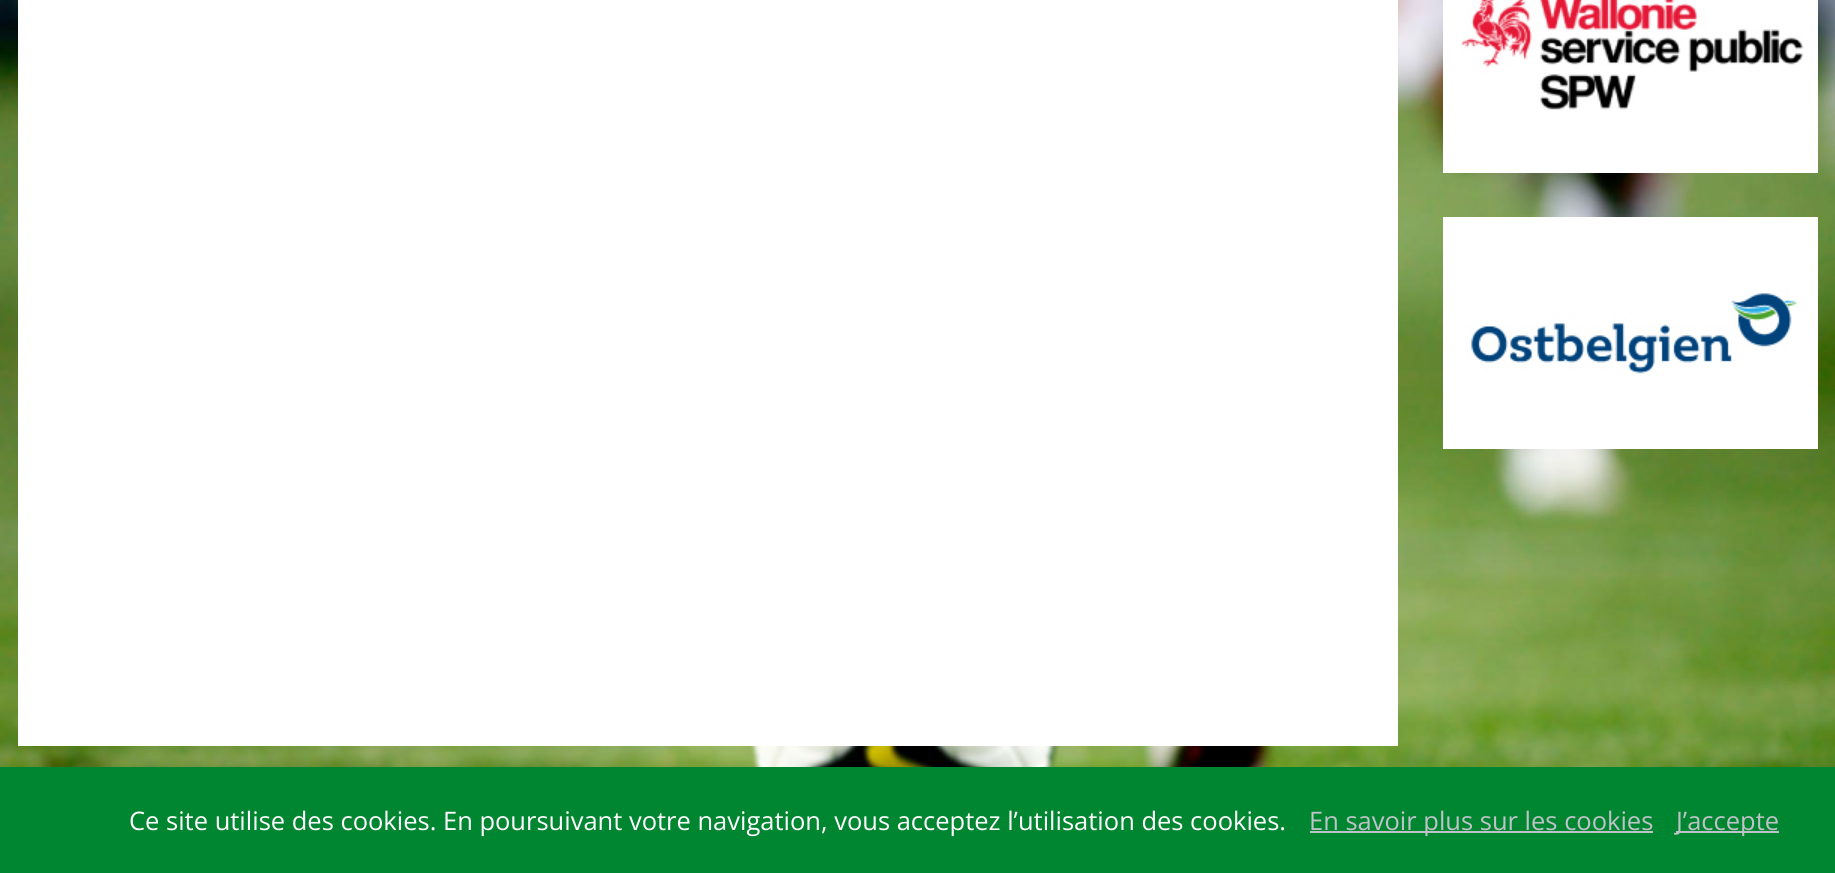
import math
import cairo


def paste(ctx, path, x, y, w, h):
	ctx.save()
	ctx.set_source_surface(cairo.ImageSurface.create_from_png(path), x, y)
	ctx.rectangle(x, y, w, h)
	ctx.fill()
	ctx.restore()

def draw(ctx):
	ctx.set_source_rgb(1, 1, 1)
	ctx.paint()
	paste(ctx, 'media/1.png', 0, 0, 1835, 767)
	ctx.set_source_rgb(1, 1, 1)
	ctx.rectangle(18, 0, 1380, 746)
	ctx.fill()
	ctx.rectangle(1443, 0, 375, 173)
	ctx.fill()
	paste(ctx, 'media/2.png', 1461, 0, 343, 110)
	ctx.rectangle(1443, 374, 375, 75)
	ctx.fill()
	paste(ctx, 'media/3.png', 1443, 217, 375, 157)
	ctx.set_source_rgb(0, 0.522, 0.188)
	ctx.rectangle(0, 767, 1835, 106)
	ctx.fill()
	ctx.select_font_face('Open Sans')
	ctx.set_font_size(25.5)
	ctx.set_source_rgb(1, 1, 1)
	ctx.move_to(129, 830)
	ctx.show_text('Ce site utilise des cookies. En poursuivant votre navigation, vous acceptez l’utilisation des cookies.')
	ctx.set_source_rgb(0.741, 0.765, 0.78)
	ctx.rectangle(1310, 831, 343, 2)
	ctx.fill()
	ctx.move_to(1309, 830)
	ctx.show_text('En savoir plus sur les cookies')
	ctx.rectangle(1676, 831, 103, 2)
	ctx.fill()
	ctx.move_to(1676, 830)
	ctx.show_text('J’accepte')


surface = cairo.ImageSurface(cairo.FORMAT_RGB24, 1835, 873)
ctx = cairo.Context(surface)
options = cairo.FontOptions()
options.set_hint_metrics(cairo.HINT_METRICS_OFF)
options.set_hint_style(cairo.HINT_STYLE_NONE)
ctx.set_font_options(options)
ctx.set_miter_limit(4)
draw(ctx)
surface.write_to_png('image.png')
